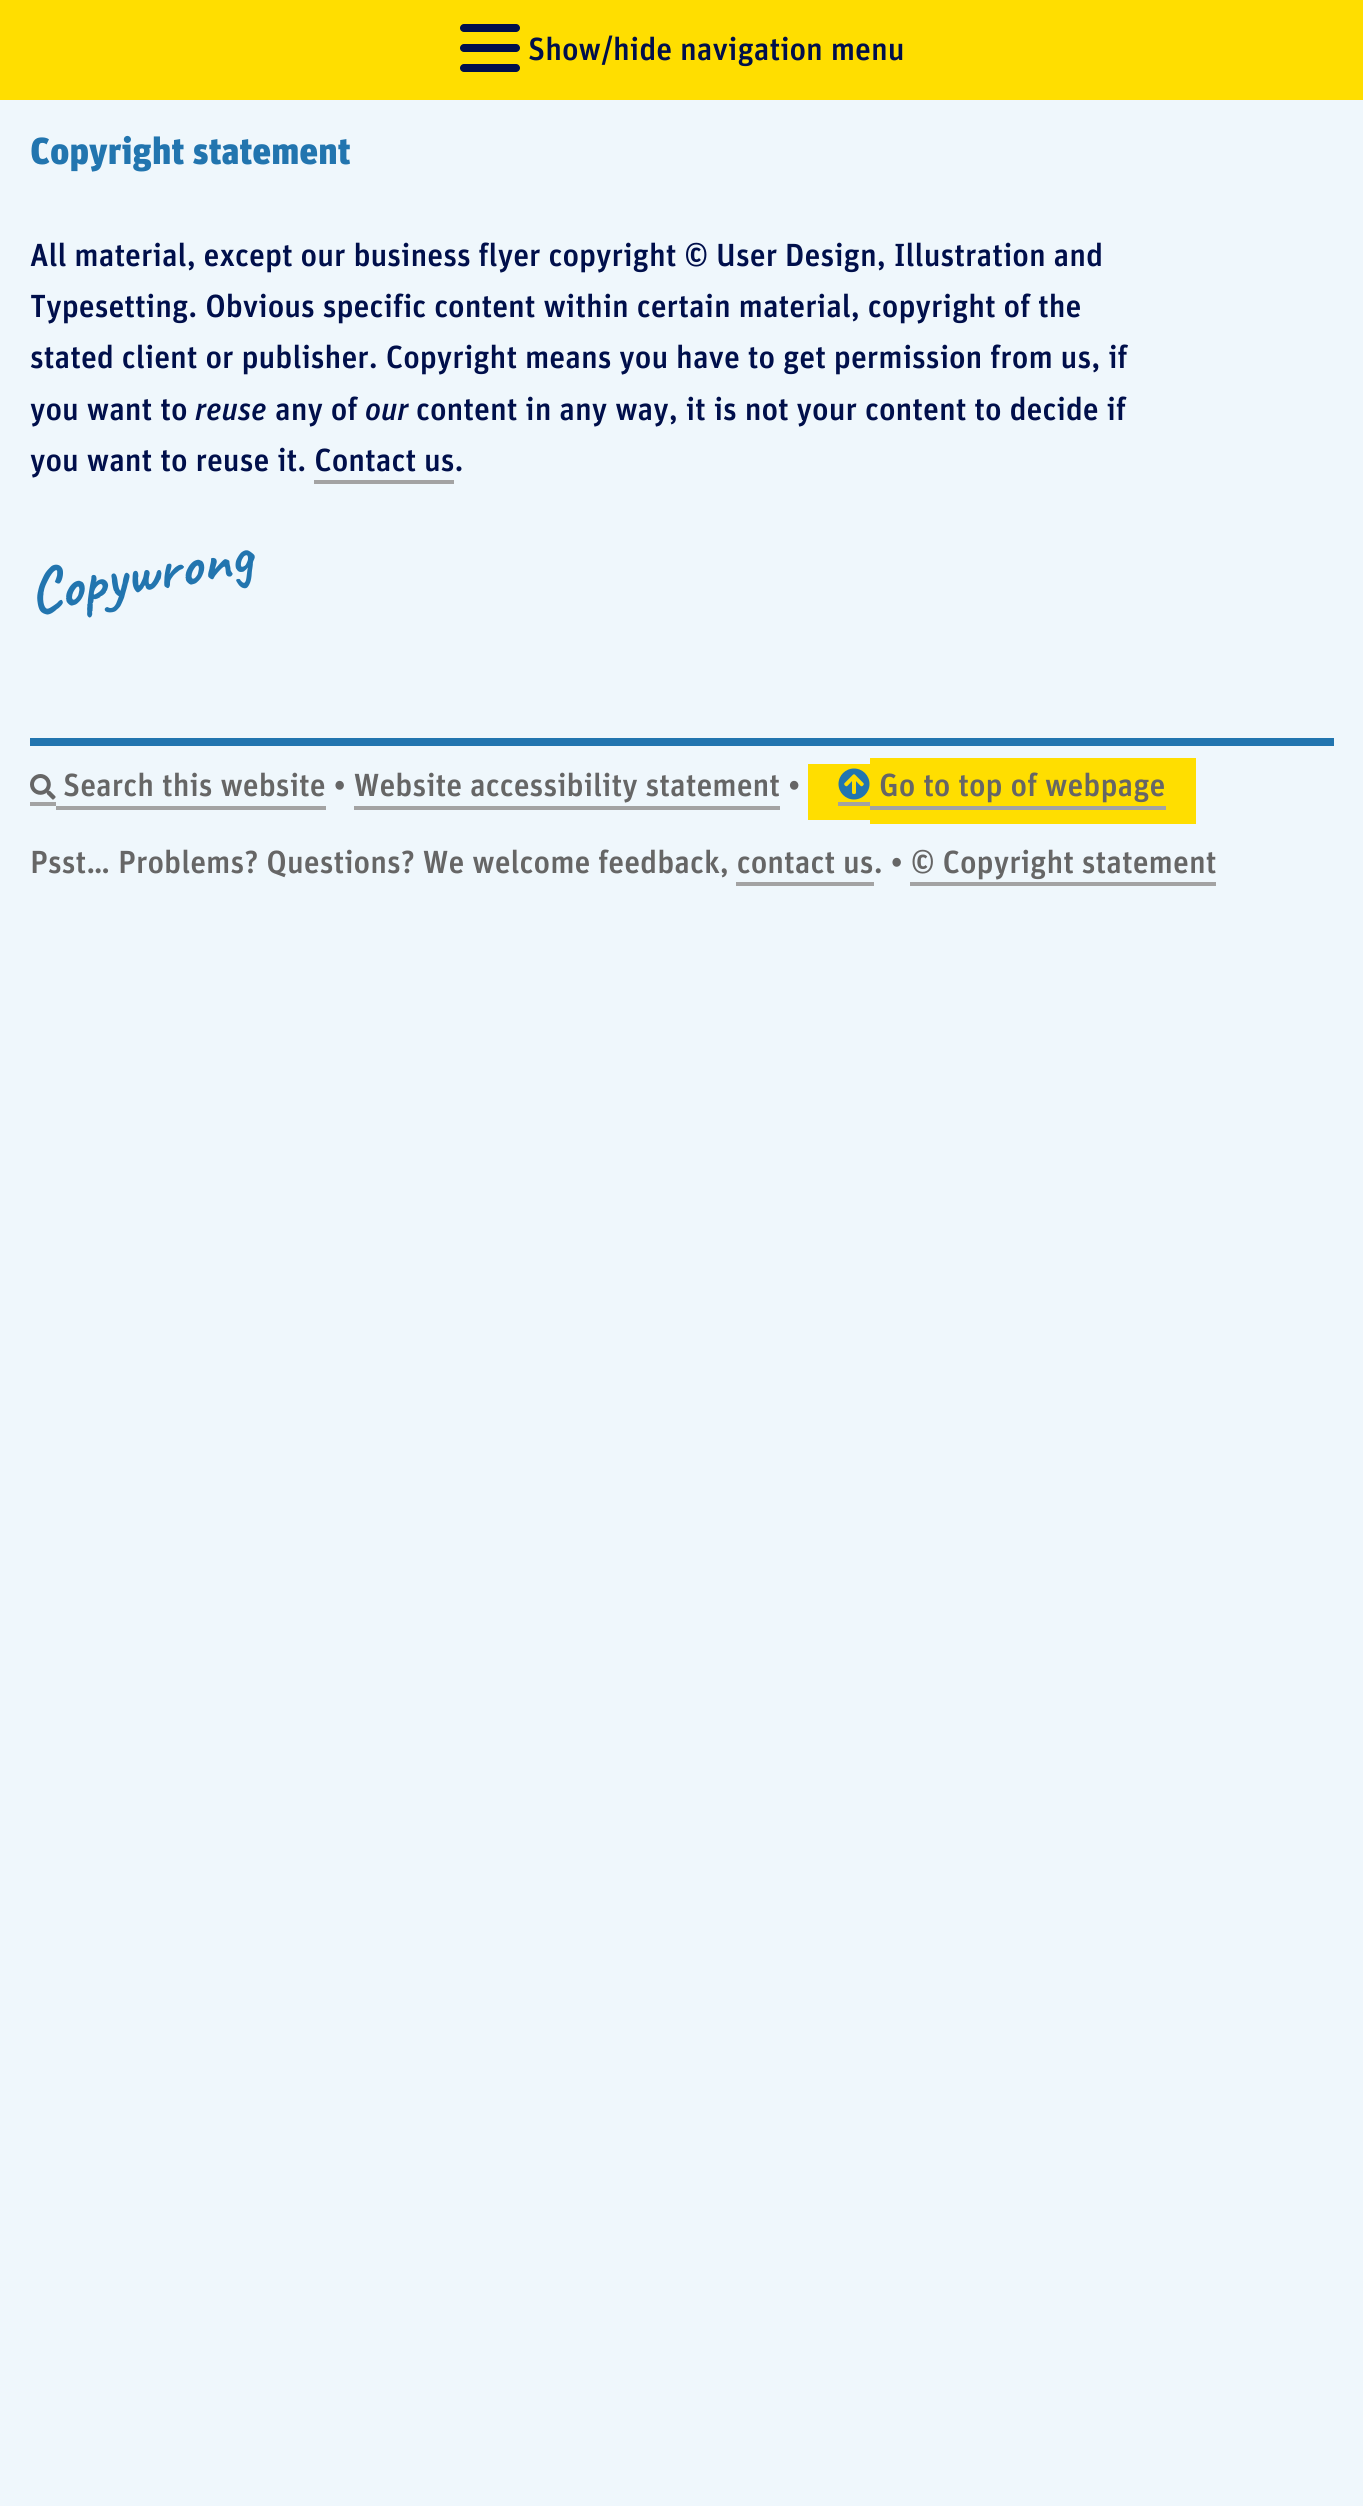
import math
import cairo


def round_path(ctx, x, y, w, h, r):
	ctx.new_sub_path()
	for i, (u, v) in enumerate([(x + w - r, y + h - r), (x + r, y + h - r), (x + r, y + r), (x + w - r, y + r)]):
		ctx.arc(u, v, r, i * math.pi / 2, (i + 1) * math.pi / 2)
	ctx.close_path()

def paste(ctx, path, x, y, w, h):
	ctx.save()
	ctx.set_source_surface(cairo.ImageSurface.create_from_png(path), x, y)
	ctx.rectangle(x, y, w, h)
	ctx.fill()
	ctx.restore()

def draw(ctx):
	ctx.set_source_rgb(0.937, 0.965, 0.988)
	ctx.paint()
	ctx.set_source_rgb(1, 0.871, 0)
	ctx.rectangle(0, 0, 1363, 100)
	ctx.fill()
	ctx.set_source_rgb(0, 0.059, 0.294)
	round_path(ctx, 460, 44, 60, 8, 4)
	ctx.fill()
	round_path(ctx, 460, 24, 60, 8, 4)
	ctx.fill()
	round_path(ctx, 460, 64, 60, 8, 4)
	ctx.fill()
	ctx.select_font_face('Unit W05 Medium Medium')
	ctx.set_font_size(32)
	ctx.move_to(528, 60)
	ctx.show_text('Show/hide navigation menu')
	ctx.select_font_face('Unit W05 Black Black')
	ctx.set_font_size(37.5)
	ctx.set_source_rgb(0.133, 0.459, 0.686)
	ctx.move_to(30, 164)
	ctx.show_text('Copyright statement')
	ctx.select_font_face('Unit W05 Medium Medium')
	ctx.set_font_size(32)
	ctx.set_source_rgb(0, 0.059, 0.294)
	for x, y, s in [
		(30, 266, 'All material, except our business flyer copyright © User Design, Illustration and'),
		(30, 317, 'Typesetting. Obvious specific content within certain material, copyright of the'),
		(30, 368, 'stated client or publisher. Copyright means you have to get permission from us, if'),
		(30, 420, 'you want to'),
	]:
		ctx.move_to(x, y)
		ctx.show_text(s)
	ctx.select_font_face('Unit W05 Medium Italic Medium', cairo.FONT_SLANT_ITALIC)
	ctx.move_to(195, 420)
	ctx.show_text('reuse')
	ctx.select_font_face('Unit W05 Medium Medium')
	ctx.move_to(275, 420)
	ctx.show_text('any of')
	ctx.select_font_face('Unit W05 Medium Italic Medium', cairo.FONT_SLANT_ITALIC)
	ctx.move_to(365, 420)
	ctx.show_text('our')
	ctx.select_font_face('Unit W05 Medium Medium')
	ctx.move_to(416, 420)
	ctx.show_text('content in any way, it is not your content to decide if')
	ctx.move_to(30, 471)
	ctx.show_text('you want to reuse it. Contact us.')
	ctx.set_source_rgb(0.639, 0.639, 0.639)
	ctx.rectangle(314, 480, 140, 4)
	ctx.fill()
	ctx.select_font_face('Caveat', cairo.FONT_SLANT_NORMAL, cairo.FONT_WEIGHT_BOLD)
	ctx.set_font_size(62)
	ctx.set_source_rgb(0.133, 0.459, 0.686)
	ctx.save()
	ctx.translate(32, 613)
	ctx.rotate(-10 * math.pi / 180)
	ctx.move_to(0, 0)
	ctx.show_text('Copywrong')
	ctx.restore()
	ctx.rectangle(30, 738, 1304, 8)
	ctx.fill()
	ctx.set_source_rgb(0.639, 0.639, 0.639)
	ctx.rectangle(30, 802, 26, 4)
	ctx.rectangle(56, 806, 270, 4)
	ctx.fill()
	paste(ctx, 'media/1.png', 30, 774, 26, 26)
	ctx.select_font_face('Unit W05 Medium Medium')
	ctx.set_font_size(32)
	ctx.set_source_rgb(0.4, 0.4, 0.4)
	ctx.move_to(63, 796)
	ctx.show_text('Search this website • Website accessibility statement •')
	ctx.set_source_rgb(1, 0.871, 0)
	ctx.rectangle(808, 764, 62, 56)
	ctx.rectangle(870, 758, 326, 66)
	ctx.fill()
	ctx.set_source_rgb(0.639, 0.639, 0.639)
	ctx.rectangle(838, 802, 32, 4)
	ctx.rectangle(870, 806, 296, 4)
	ctx.fill()
	paste(ctx, 'media/2.png', 838, 768, 32, 32)
	ctx.set_source_rgb(0.4, 0.4, 0.4)
	ctx.move_to(879, 796)
	ctx.show_text('Go to top of webpage')
	ctx.set_source_rgb(0.639, 0.639, 0.639)
	ctx.rectangle(354, 806, 426, 4)
	ctx.fill()
	ctx.set_source_rgb(0.4, 0.4, 0.4)
	ctx.move_to(30, 873)
	ctx.show_text('Psst… Problems? Questions? We welcome feedback, contact us. • © Copyright statement')
	ctx.set_source_rgb(0.639, 0.639, 0.639)
	ctx.rectangle(736, 882, 138, 4)
	ctx.fill()
	ctx.rectangle(910, 882, 306, 4)
	ctx.fill()


surface = cairo.ImageSurface(cairo.FORMAT_RGB24, 1363, 2506)
ctx = cairo.Context(surface)
options = cairo.FontOptions()
options.set_hint_metrics(cairo.HINT_METRICS_OFF)
options.set_hint_style(cairo.HINT_STYLE_NONE)
ctx.set_font_options(options)
ctx.set_miter_limit(4)
draw(ctx)
surface.write_to_png('image.png')
